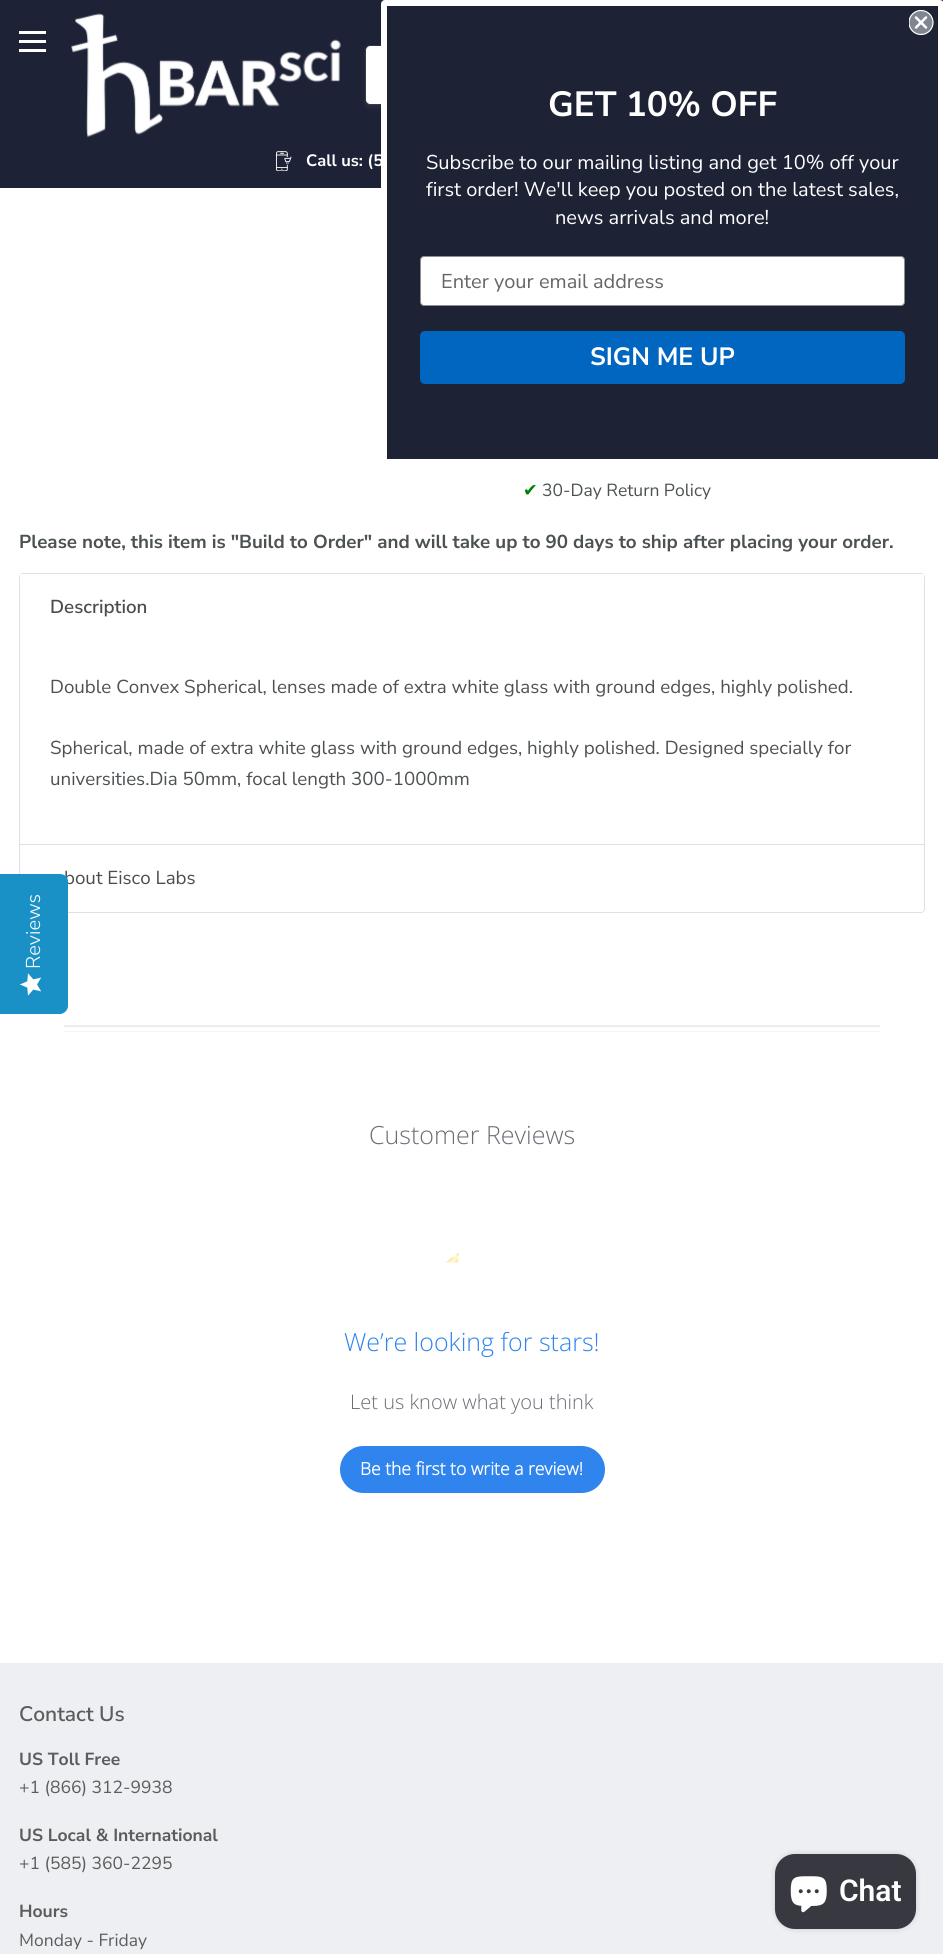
import math
import cairo


def round_path(ctx, x, y, w, h, r):
	ctx.new_sub_path()
	for i, (u, v) in enumerate([(x + w - r, y + h - r), (x + r, y + h - r), (x + r, y + r), (x + w - r, y + r)]):
		ctx.arc(u, v, r, i * math.pi / 2, (i + 1) * math.pi / 2)
	ctx.close_path()

def blur_box(ctx, x, y, w, h, r, blur, alpha):
	ctx.push_group_with_content(cairo.CONTENT_ALPHA)
	ctx.set_operator(cairo.OPERATOR_SOURCE)
	for i in range(15, -16, -2):
		e = blur * i / 6
		if min(w, h) + 2 * e > 0:
			ctx.set_source_rgba(0, 0, 0, alpha * math.erfc((i - 1) / 8.5) / 2)
			round_path(ctx, x - e, y - e, w + 2 * e, h + 2 * e, max(0, min(r + e + blur * .6, min(w, h) / 2 + e)))
			ctx.fill()
	ctx.mask(ctx.pop_group())

def paste(ctx, path, x, y, w, h):
	ctx.save()
	ctx.set_source_surface(cairo.ImageSurface.create_from_png(path), x, y)
	ctx.rectangle(x, y, w, h)
	ctx.fill()
	ctx.restore()

def draw(ctx):
	ctx.set_source_rgb(1, 1, 1)
	ctx.paint()
	ctx.set_source_rgb(0.114, 0.133, 0.212)
	ctx.rectangle(0, 0, 943, 188)
	ctx.fill()
	ctx.set_source_rgb(1, 1, 1)
	ctx.rectangle(19, 31, 27, 3)
	ctx.rectangle(19, 40, 27, 3)
	ctx.rectangle(19, 49, 27, 3)
	ctx.fill()
	paste(ctx, 'media/1.png', 71, 13, 270, 125)
	ctx.set_source_rgb(0.502, 0.502, 0.502)
	blur_box(ctx, 365, 48, 501, 60, 5, 2, 0.11)
	round_path(ctx, 365.5, 45.5, 500, 59, 4.5)
	ctx.set_source_rgba(0.502, 0.502, 0.502, 0.2)
	ctx.set_line_width(1)
	ctx.stroke()
	ctx.set_source_rgb(1, 1, 1)
	ctx.new_path()
	ctx.move_to(370, 46)
	ctx.line_to(798, 46)
	ctx.line_to(798, 104)
	ctx.line_to(370, 104)
	ctx.curve_to(368, 104, 366, 102, 366, 100)
	ctx.line_to(366, 50)
	ctx.curve_to(366, 48, 368, 46, 370, 46)
	ctx.close_path()
	ctx.fill()
	paste(ctx, 'media/2.png', 276, 151, 16, 20)
	ctx.select_font_face('Nunito Sans', cairo.FONT_SLANT_NORMAL, cairo.FONT_WEIGHT_BOLD)
	ctx.set_font_size(16.5)
	ctx.move_to(306, 166)
	ctx.show_text('Call us: (5')
	ctx.set_source_rgb(0.114, 0.133, 0.208)
	round_path(ctx, 384, 3, 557, 459, 1)
	ctx.fill_preserve()
	ctx.set_source_rgb(1, 1, 1)
	ctx.set_line_width(6)
	ctx.stroke()
	ctx.set_source_rgb(0.498, 0.522, 0.569)
	ctx.arc(921, 22.5, 12, 0, 2 * math.pi)
	ctx.fill()
	ctx.save()
	ctx.rectangle(909, 10, 25, 25)
	ctx.clip()
	ctx.arc(921, 22.5, 12, 0, 2 * math.pi)
	ctx.set_source_rgb(1, 1, 1)
	ctx.set_line_width(1.2)
	ctx.stroke()
	ctx.restore()
	ctx.new_path()
	ctx.move_to(916, 17.5)
	ctx.line_to(926, 27.5)
	ctx.move_to(916, 27.5)
	ctx.line_to(926, 17.5)
	ctx.close_path()
	ctx.set_source_rgb(1, 1, 1)
	ctx.set_line_width(2.5)
	ctx.set_line_cap(cairo.LINE_CAP_ROUND)
	ctx.set_line_join(cairo.LINE_JOIN_ROUND)
	ctx.stroke()
	ctx.set_font_size(35)
	ctx.move_to(548, 116)
	ctx.show_text('GET 10% OFF')
	ctx.select_font_face('Nunito Sans')
	ctx.set_font_size(20)
	for x, y, s in [
		(426, 169, 'Subscribe to our mailing listing and get 10% off your'),
		(426, 196, 'first order! We\'ll keep you posted on the latest sales,'),
		(555, 224, 'news arrivals and more!'),
	]:
		ctx.move_to(x, y)
		ctx.show_text(s)
	round_path(ctx, 420.5, 256.5, 484, 49, 3.5)
	ctx.fill_preserve()
	ctx.set_source_rgb(0.549, 0.557, 0.565)
	ctx.set_line_width(1)
	ctx.set_line_cap(cairo.LINE_CAP_BUTT)
	ctx.set_line_join(cairo.LINE_JOIN_MITER)
	ctx.stroke()
	ctx.set_source_rgb(0.396, 0.396, 0.396)
	ctx.move_to(441, 288)
	ctx.show_text('Enter your email address')
	ctx.set_source_rgb(0, 0.4, 0.749)
	round_path(ctx, 420, 331, 485, 53, 5)
	ctx.fill()
	ctx.select_font_face('Nunito Sans', cairo.FONT_SLANT_NORMAL, cairo.FONT_WEIGHT_BOLD)
	ctx.set_font_size(25)
	ctx.set_source_rgb(1, 1, 1)
	ctx.move_to(590, 365)
	ctx.show_text('SIGN ME UP')
	ctx.select_font_face('DejaVu Sans')
	ctx.set_font_size(17.5)
	ctx.set_source_rgb(0, 0.502, 0)
	ctx.move_to(523, 496)
	ctx.show_text('✔')
	ctx.select_font_face('Nunito Sans')
	ctx.set_source_rgb(0.298, 0.318, 0.329)
	ctx.move_to(542, 496)
	ctx.show_text('30-Day Return Policy')
	ctx.select_font_face('Nunito Sans', cairo.FONT_SLANT_NORMAL, cairo.FONT_WEIGHT_BOLD)
	ctx.set_font_size(18.75)
	ctx.move_to(19, 548)
	ctx.show_text('Please note, this item is "Build to Order" and will take up to 90 days to ship after placing your order.')
	round_path(ctx, 19.5, 573.5, 905, 339, 3.5)
	ctx.set_source_rgb(0.882, 0.882, 0.882)
	ctx.stroke()
	ctx.set_source_rgb(1, 1, 1)
	ctx.rectangle(20, 574, 904, 3)
	ctx.fill()
	ctx.select_font_face('Nunito Sans SemiBold')
	ctx.set_source_rgb(0.298, 0.298, 0.298)
	ctx.move_to(50, 613)
	ctx.show_text('Description')
	ctx.select_font_face('Nunito Sans')
	ctx.set_source_rgb(0.298, 0.318, 0.329)
	for x, y, s in [
		(50, 693, 'Double Convex Spherical, lenses made of extra white glass with ground edges, highly polished.'),
		(50, 754, 'Spherical, made of extra white glass with ground edges, highly polished. Designed specially for'),
		(50, 785, 'universities.Dia 50mm, focal length 300-1000mm'),
	]:
		ctx.move_to(x, y)
		ctx.show_text(s)
	ctx.set_source_rgb(0.882, 0.882, 0.882)
	ctx.rectangle(20, 844, 904, 1)
	ctx.fill()
	ctx.set_source_rgb(0.298, 0.298, 0.298)
	ctx.move_to(64, 884)
	ctx.show_text('bout Eisco Labs')
	paste(ctx, 'media/3.png', 63, 1025, 817, 7)
	ctx.select_font_face('Open Sans Light')
	ctx.set_font_size(25)
	ctx.set_source_rgb(0.42, 0.427, 0.463)
	ctx.move_to(369, 1144)
	ctx.show_text('Customer Reviews')
	paste(ctx, 'media/4.png', 446, 1252, 13, 11)
	ctx.set_source_rgb(0.184, 0.518, 0.929)
	ctx.move_to(344, 1351)
	ctx.show_text('We’re looking for stars!')
	ctx.set_font_size(20)
	ctx.set_source_rgb(0.42, 0.427, 0.463)
	ctx.move_to(350, 1409)
	ctx.show_text('Let us know what you think')
	ctx.set_source_rgb(0.184, 0.518, 0.929)
	round_path(ctx, 340, 1446, 265, 47, 23.5)
	ctx.fill()
	ctx.select_font_face('Open Sans', cairo.FONT_SLANT_NORMAL, cairo.FONT_WEIGHT_BOLD)
	ctx.set_font_size(17.5)
	ctx.set_source_rgb(1, 1, 1)
	ctx.move_to(360, 1475)
	ctx.show_text('Be the first to write a review!')
	ctx.set_source_rgb(0.098, 0.565, 0.776)
	ctx.new_path()
	ctx.move_to(0, 1014)
	ctx.line_to(0, 874)
	ctx.line_to(60, 874)
	ctx.curve_to(64, 874, 68, 877, 68, 881)
	ctx.line_to(68, 1006)
	ctx.curve_to(68, 1010, 64, 1014, 60, 1014)
	ctx.close_path()
	ctx.fill()
	ctx.select_font_face('Nunito Sans Light')
	ctx.set_font_size(20)
	ctx.set_source_rgb(1, 1, 1)
	ctx.save()
	ctx.translate(40, 969)
	ctx.rotate(-90 * math.pi / 180)
	ctx.move_to(0, 0)
	ctx.show_text('Reviews')
	ctx.restore()
	paste(ctx, 'media/5.png', 20, 973, 22, 23)
	ctx.set_source_rgb(0.929, 0.937, 0.953)
	ctx.rectangle(0, 1663, 943, 291)
	ctx.fill()
	ctx.select_font_face('Nunito Sans SemiBold')
	ctx.set_font_size(21)
	ctx.set_source_rgb(0.361, 0.361, 0.361)
	ctx.move_to(19, 1721)
	ctx.show_text('Contact Us')
	ctx.select_font_face('Nunito Sans', cairo.FONT_SLANT_NORMAL, cairo.FONT_WEIGHT_BOLD)
	ctx.set_font_size(17.5)
	ctx.move_to(19, 1765)
	ctx.show_text('US Toll Free')
	ctx.select_font_face('Nunito Sans')
	ctx.move_to(19, 1793)
	ctx.show_text('+1 (866) 312-9938')
	ctx.select_font_face('Nunito Sans', cairo.FONT_SLANT_NORMAL, cairo.FONT_WEIGHT_BOLD)
	ctx.move_to(19, 1841)
	ctx.show_text('US Local & International')
	ctx.select_font_face('Nunito Sans')
	ctx.move_to(19, 1869)
	ctx.show_text('+1 (585) 360-2295')
	ctx.select_font_face('Nunito Sans', cairo.FONT_SLANT_NORMAL, cairo.FONT_WEIGHT_BOLD)
	ctx.move_to(19, 1917)
	ctx.show_text('Hours')
	ctx.select_font_face('Nunito Sans')
	ctx.move_to(19, 1946)
	ctx.show_text('Monday - Friday')
	ctx.set_source_rgb(0, 0, 0)
	blur_box(ctx, 775, 1854, 141, 75, 20, 3, 0.15)
	ctx.set_source_rgb(0.22, 0.224, 0.251)
	round_path(ctx, 775, 1854, 141, 75, 20)
	ctx.fill()
	paste(ctx, 'media/6.png', 790, 1876, 37, 37)
	ctx.select_font_face('Roboto SemiBold')
	ctx.set_font_size(30)
	ctx.set_source_rgb(1, 1, 1)
	ctx.move_to(839, 1901)
	ctx.show_text('Chat')


surface = cairo.ImageSurface(cairo.FORMAT_RGB24, 943, 1954)
ctx = cairo.Context(surface)
options = cairo.FontOptions()
options.set_hint_metrics(cairo.HINT_METRICS_OFF)
options.set_hint_style(cairo.HINT_STYLE_NONE)
ctx.set_font_options(options)
ctx.set_miter_limit(4)
draw(ctx)
surface.write_to_png('image.png')
